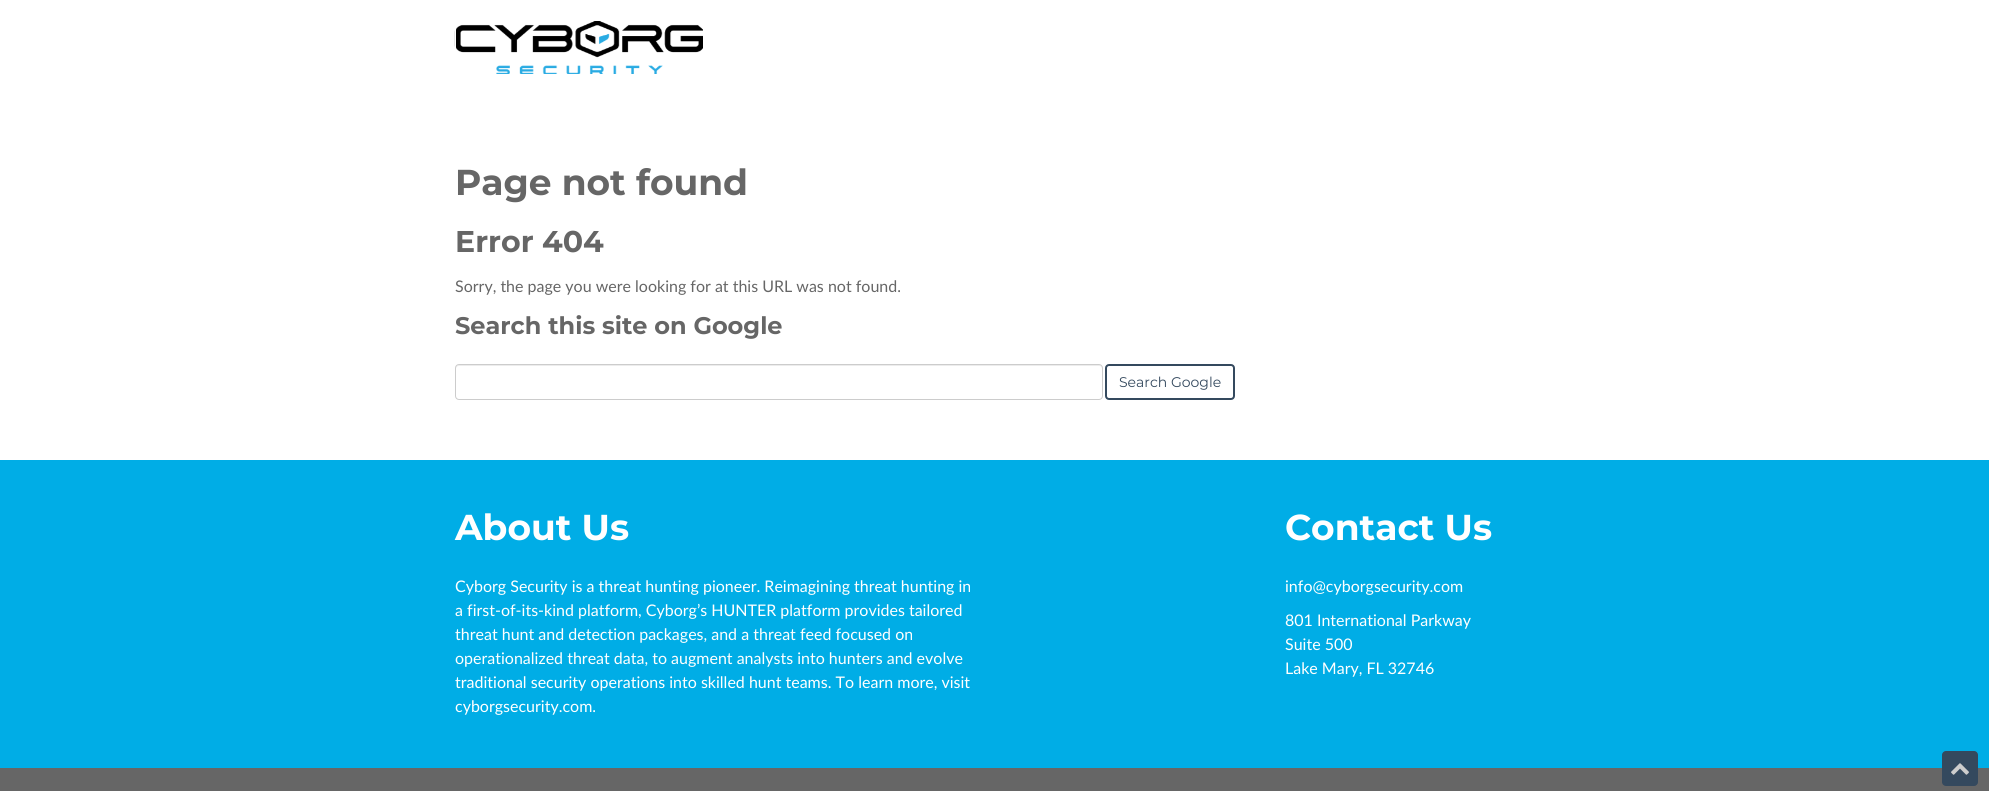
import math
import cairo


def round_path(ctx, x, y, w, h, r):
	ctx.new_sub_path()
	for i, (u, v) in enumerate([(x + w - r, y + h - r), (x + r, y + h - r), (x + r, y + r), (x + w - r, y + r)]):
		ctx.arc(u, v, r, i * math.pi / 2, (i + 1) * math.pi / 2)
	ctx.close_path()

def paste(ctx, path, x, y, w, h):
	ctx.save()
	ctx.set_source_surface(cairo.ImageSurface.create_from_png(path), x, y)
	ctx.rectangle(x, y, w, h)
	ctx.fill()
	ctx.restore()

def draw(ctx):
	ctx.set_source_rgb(1, 1, 1)
	ctx.paint()
	paste(ctx, 'media/1.png', 454, 21, 249, 53)
	ctx.rectangle(455.5, 20.5, 248, 54)
	ctx.set_source_rgb(1, 1, 1)
	ctx.set_line_width(1)
	ctx.stroke()
	ctx.select_font_face('Montserrat', cairo.FONT_SLANT_NORMAL, cairo.FONT_WEIGHT_BOLD)
	ctx.set_font_size(36)
	ctx.set_source_rgb(0.4, 0.4, 0.4)
	ctx.move_to(455, 195)
	ctx.show_text('Page not found')
	ctx.set_font_size(30)
	ctx.move_to(455, 252)
	ctx.show_text('Error 404')
	ctx.select_font_face('Lato')
	ctx.set_font_size(16)
	ctx.move_to(455, 292)
	ctx.show_text('Sorry, the page you were looking for at this URL was not found.')
	ctx.select_font_face('Montserrat', cairo.FONT_SLANT_NORMAL, cairo.FONT_WEIGHT_BOLD)
	ctx.set_font_size(24)
	ctx.move_to(455, 334)
	ctx.show_text('Search this site on Google')
	ctx.set_source_rgb(0.925, 0.925, 0.925)
	ctx.new_path()
	ctx.move_to(459, 366)
	ctx.line_to(1099, 366)
	ctx.curve_to(1101, 366, 1102, 367, 1102, 369)
	ctx.line_to(1102, 368)
	ctx.curve_to(1102, 366, 1101, 365, 1099, 365)
	ctx.line_to(459, 365)
	ctx.curve_to(457, 365, 456, 366, 456, 368)
	ctx.line_to(456, 369)
	ctx.curve_to(456, 367, 457, 366, 459, 366)
	ctx.close_path()
	ctx.fill()
	round_path(ctx, 455.5, 364.5, 647, 35, 3.5)
	ctx.set_source_rgb(0.8, 0.8, 0.8)
	ctx.stroke()
	round_path(ctx, 1106, 365, 128, 34, 3)
	ctx.set_source_rgb(0.204, 0.286, 0.369)
	ctx.set_line_width(2)
	ctx.stroke()
	ctx.select_font_face('Montserrat')
	ctx.set_font_size(14)
	ctx.move_to(1119, 387)
	ctx.show_text('Search Google')
	ctx.set_source_rgb(0, 0.678, 0.902)
	ctx.rectangle(0, 460, 1989, 308)
	ctx.fill()
	ctx.select_font_face('Montserrat', cairo.FONT_SLANT_NORMAL, cairo.FONT_WEIGHT_BOLD)
	ctx.set_font_size(36)
	ctx.set_source_rgb(1, 1, 1)
	ctx.move_to(455, 540)
	ctx.show_text('About Us')
	ctx.select_font_face('Lato')
	ctx.set_font_size(16)
	for x, y, s in [
		(455, 592, 'Cyborg Security is a threat hunting pioneer. Reimagining threat hunting in'),
		(455, 616, 'a first-of-its-kind platform, Cyborg’s HUNTER platform provides tailored'),
		(455, 640, 'threat hunt and detection packages, and a threat feed focused on'),
		(455, 664, 'operationalized threat data, to augment analysts into hunters and evolve'),
		(455, 688, 'traditional security operations into skilled hunt teams. To learn more, visit'),
		(455, 712, 'cyborgsecurity.com.'),
	]:
		ctx.move_to(x, y)
		ctx.show_text(s)
	ctx.select_font_face('Montserrat', cairo.FONT_SLANT_NORMAL, cairo.FONT_WEIGHT_BOLD)
	ctx.set_font_size(36)
	ctx.move_to(1285, 540)
	ctx.show_text('Contact Us')
	ctx.select_font_face('Lato')
	ctx.set_font_size(16)
	for x, y, s in [
		(1285, 592, 'info@cyborgsecurity.com'),
		(1285, 626, '801 International Parkway'),
		(1285, 650, 'Suite 500'),
		(1285, 674, 'Lake Mary, FL 32746'),
	]:
		ctx.move_to(x, y)
		ctx.show_text(s)
	ctx.set_source_rgb(0.4, 0.4, 0.4)
	ctx.rectangle(0, 768, 1989, 23)
	ctx.fill()
	ctx.set_source_rgb(0.204, 0.286, 0.369)
	round_path(ctx, 1942, 751, 36, 35, 4)
	ctx.fill()
	paste(ctx, 'media/2.png', 1951, 763, 18, 12)


surface = cairo.ImageSurface(cairo.FORMAT_RGB24, 1989, 791)
ctx = cairo.Context(surface)
options = cairo.FontOptions()
options.set_hint_metrics(cairo.HINT_METRICS_OFF)
options.set_hint_style(cairo.HINT_STYLE_NONE)
ctx.set_font_options(options)
ctx.set_miter_limit(4)
draw(ctx)
surface.write_to_png('image.png')
